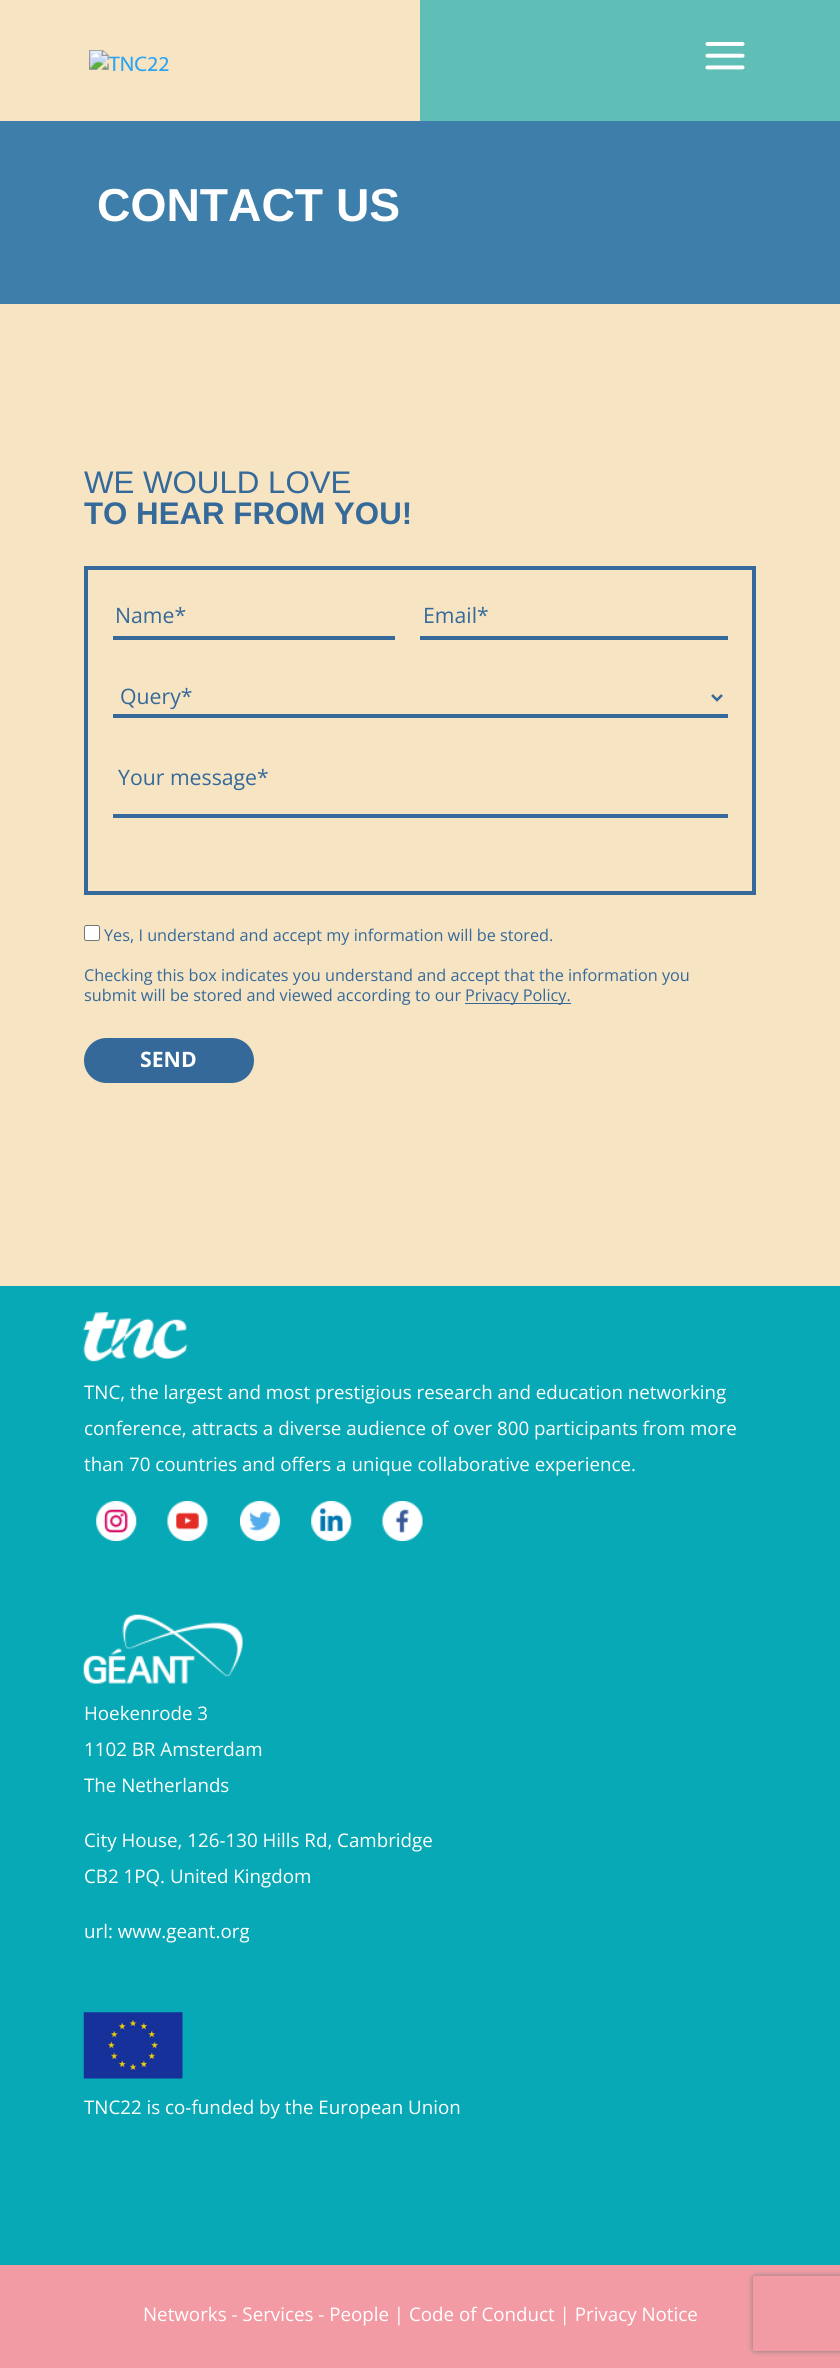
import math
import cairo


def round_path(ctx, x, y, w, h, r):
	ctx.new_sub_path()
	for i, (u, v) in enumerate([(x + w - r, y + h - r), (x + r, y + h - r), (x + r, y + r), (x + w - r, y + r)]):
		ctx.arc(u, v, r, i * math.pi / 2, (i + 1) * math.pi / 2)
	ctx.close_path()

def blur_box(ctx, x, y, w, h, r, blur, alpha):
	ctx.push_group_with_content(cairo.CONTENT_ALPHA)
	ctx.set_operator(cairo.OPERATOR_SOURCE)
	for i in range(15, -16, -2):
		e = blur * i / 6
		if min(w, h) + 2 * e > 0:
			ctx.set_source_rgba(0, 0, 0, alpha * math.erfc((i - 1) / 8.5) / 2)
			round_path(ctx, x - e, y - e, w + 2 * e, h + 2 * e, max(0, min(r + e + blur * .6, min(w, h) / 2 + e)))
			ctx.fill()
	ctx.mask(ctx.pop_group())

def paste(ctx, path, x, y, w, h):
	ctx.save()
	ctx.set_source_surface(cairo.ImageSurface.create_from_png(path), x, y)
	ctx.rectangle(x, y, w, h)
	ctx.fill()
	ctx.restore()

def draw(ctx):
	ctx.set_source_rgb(0.035, 0.663, 0.714)
	ctx.paint()
	ctx.set_source_rgb(0.965, 0.894, 0.765)
	ctx.rectangle(0, 0, 420, 121)
	ctx.fill()
	ctx.set_source_rgb(0.373, 0.749, 0.718)
	ctx.rectangle(420, 0, 420, 121)
	ctx.fill()
	paste(ctx, 'media/1.png', 89, 50, 80, 22)
	paste(ctx, 'media/2.png', 705, 42, 40, 28)
	ctx.set_source_rgb(0.243, 0.494, 0.667)
	ctx.rectangle(0, 121, 840, 183)
	ctx.fill()
	ctx.select_font_face('Liberation Sans', cairo.FONT_SLANT_NORMAL, cairo.FONT_WEIGHT_BOLD)
	ctx.set_font_size(46.25)
	ctx.set_source_rgb(1, 1, 1)
	ctx.move_to(97, 221)
	ctx.show_text('CONTACT US')
	ctx.set_source_rgb(0.961, 0.894, 0.765)
	ctx.rectangle(0, 304, 840, 982)
	ctx.fill()
	ctx.select_font_face('Liberation Sans')
	ctx.set_font_size(31.25)
	ctx.set_source_rgb(0.204, 0.412, 0.604)
	ctx.move_to(84, 493)
	ctx.show_text('WE WOULD LOVE')
	ctx.select_font_face('Liberation Sans', cairo.FONT_SLANT_NORMAL, cairo.FONT_WEIGHT_BOLD)
	ctx.move_to(84, 524)
	ctx.show_text('TO HEAR FROM YOU!')
	ctx.rectangle(86, 568, 668, 325)
	ctx.set_line_width(4)
	ctx.stroke()
	ctx.rectangle(113, 636, 282, 4)
	ctx.fill()
	ctx.select_font_face('Open Sans')
	ctx.set_font_size(21.25)
	ctx.move_to(115, 623)
	ctx.show_text('Name*')
	ctx.rectangle(420, 636, 308, 4)
	ctx.fill()
	ctx.move_to(423, 623)
	ctx.show_text('Email*')
	ctx.rectangle(113, 714, 615, 4)
	ctx.fill()
	ctx.new_path()
	ctx.move_to(712, 695)
	ctx.line_to(717, 700)
	ctx.line_to(722, 695)
	ctx.set_line_width(2.5)
	ctx.stroke()
	ctx.move_to(120, 704)
	ctx.show_text('Query*')
	ctx.rectangle(113, 814, 615, 4)
	ctx.fill()
	ctx.move_to(118, 785)
	ctx.show_text('Your message*')
	ctx.set_source_rgb(1, 1, 1)
	round_path(ctx, 84.5, 925.5, 15, 15, 2)
	ctx.fill_preserve()
	ctx.set_source_rgb(0.463, 0.463, 0.463)
	ctx.set_line_width(1)
	ctx.stroke()
	ctx.set_font_size(16.25)
	ctx.set_source_rgb(0.204, 0.412, 0.604)
	for x, y, s in [
		(104, 941, 'Yes, I understand and accept my information will be stored.'),
		(84, 981, 'Checking this box indicates you understand and accept that the information you'),
		(84, 1001, 'submit will be stored and viewed according to our'),
	]:
		ctx.move_to(x, y)
		ctx.show_text(s)
	ctx.rectangle(465, 1003, 106, 1)
	ctx.fill()
	ctx.move_to(465, 1001)
	ctx.show_text('Privacy Policy.')
	round_path(ctx, 84, 1038, 170, 45, 22.5)
	ctx.fill()
	ctx.select_font_face('Open Sans', cairo.FONT_SLANT_NORMAL, cairo.FONT_WEIGHT_BOLD)
	ctx.set_font_size(21.25)
	ctx.set_source_rgb(1, 1, 1)
	ctx.move_to(140, 1067)
	ctx.show_text('SEND')
	paste(ctx, 'media/3.png', 83, 1312, 105, 50)
	ctx.select_font_face('Open Sans')
	ctx.set_font_size(18.75)
	for x, y, s in [
		(84, 1399, 'TNC, the largest and most prestigious research and education networking'),
		(84, 1435, 'conference, attracts a diverse audience of over 800 participants from more'),
		(84, 1471, 'than 70 countries and offers a unique collaborative experience.'),
	]:
		ctx.move_to(x, y)
		ctx.show_text(s)
	paste(ctx, 'media/4.png', 96, 1501, 41, 40)
	paste(ctx, 'media/5.png', 167, 1501, 41, 40)
	paste(ctx, 'media/6.png', 240, 1501, 40, 40)
	paste(ctx, 'media/7.png', 311, 1501, 41, 40)
	paste(ctx, 'media/8.png', 382, 1501, 41, 40)
	paste(ctx, 'media/9.png', 83, 1614, 160, 70)
	for x, y, s in [
		(84, 1720, 'Hoekenrode 3'),
		(84, 1756, '1102 BR Amsterdam'),
		(84, 1792, 'The Netherlands'),
		(84, 1847, 'City House, 126-130 Hills Rd, Cambridge'),
		(84, 1883, 'CB2 1PQ. United Kingdom'),
		(84, 1938, 'url: www.geant.org'),
	]:
		ctx.move_to(x, y)
		ctx.show_text(s)
	paste(ctx, 'media/10.png', 83, 2012, 100, 67)
	ctx.move_to(84, 2114)
	ctx.show_text('TNC22 is co-funded by the European Union')
	ctx.set_source_rgb(0.953, 0.608, 0.643)
	ctx.rectangle(0, 2265, 840, 103)
	ctx.fill()
	ctx.set_source_rgb(1, 1, 1)
	ctx.move_to(143, 2321)
	ctx.show_text('Networks - Services - People | Code of Conduct | Privacy Notice')
	ctx.save()
	ctx.set_fill_rule(cairo.FILL_RULE_EVEN_ODD)
	ctx.new_path()
	ctx.move_to(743, 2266)
	ctx.line_to(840, 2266)
	ctx.line_to(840, 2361)
	ctx.line_to(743, 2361)
	ctx.close_path()
	ctx.move_to(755.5, 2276)
	ctx.line_to(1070.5, 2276)
	ctx.curve_to(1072, 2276, 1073, 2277, 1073, 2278.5)
	ctx.line_to(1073, 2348.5)
	ctx.curve_to(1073, 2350, 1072, 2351, 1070.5, 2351)
	ctx.line_to(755.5, 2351)
	ctx.curve_to(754, 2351, 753, 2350, 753, 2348.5)
	ctx.line_to(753, 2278.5)
	ctx.curve_to(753, 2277, 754, 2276, 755.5, 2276)
	ctx.close_path()
	ctx.clip()
	ctx.set_source_rgb(0.502, 0.502, 0.502)
	blur_box(ctx, 753, 2276, 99, 75, 2.5, 3, 1)
	ctx.restore()


surface = cairo.ImageSurface(cairo.FORMAT_RGB24, 840, 2368)
ctx = cairo.Context(surface)
options = cairo.FontOptions()
options.set_hint_metrics(cairo.HINT_METRICS_OFF)
options.set_hint_style(cairo.HINT_STYLE_NONE)
ctx.set_font_options(options)
ctx.set_miter_limit(4)
draw(ctx)
surface.write_to_png('image.png')
